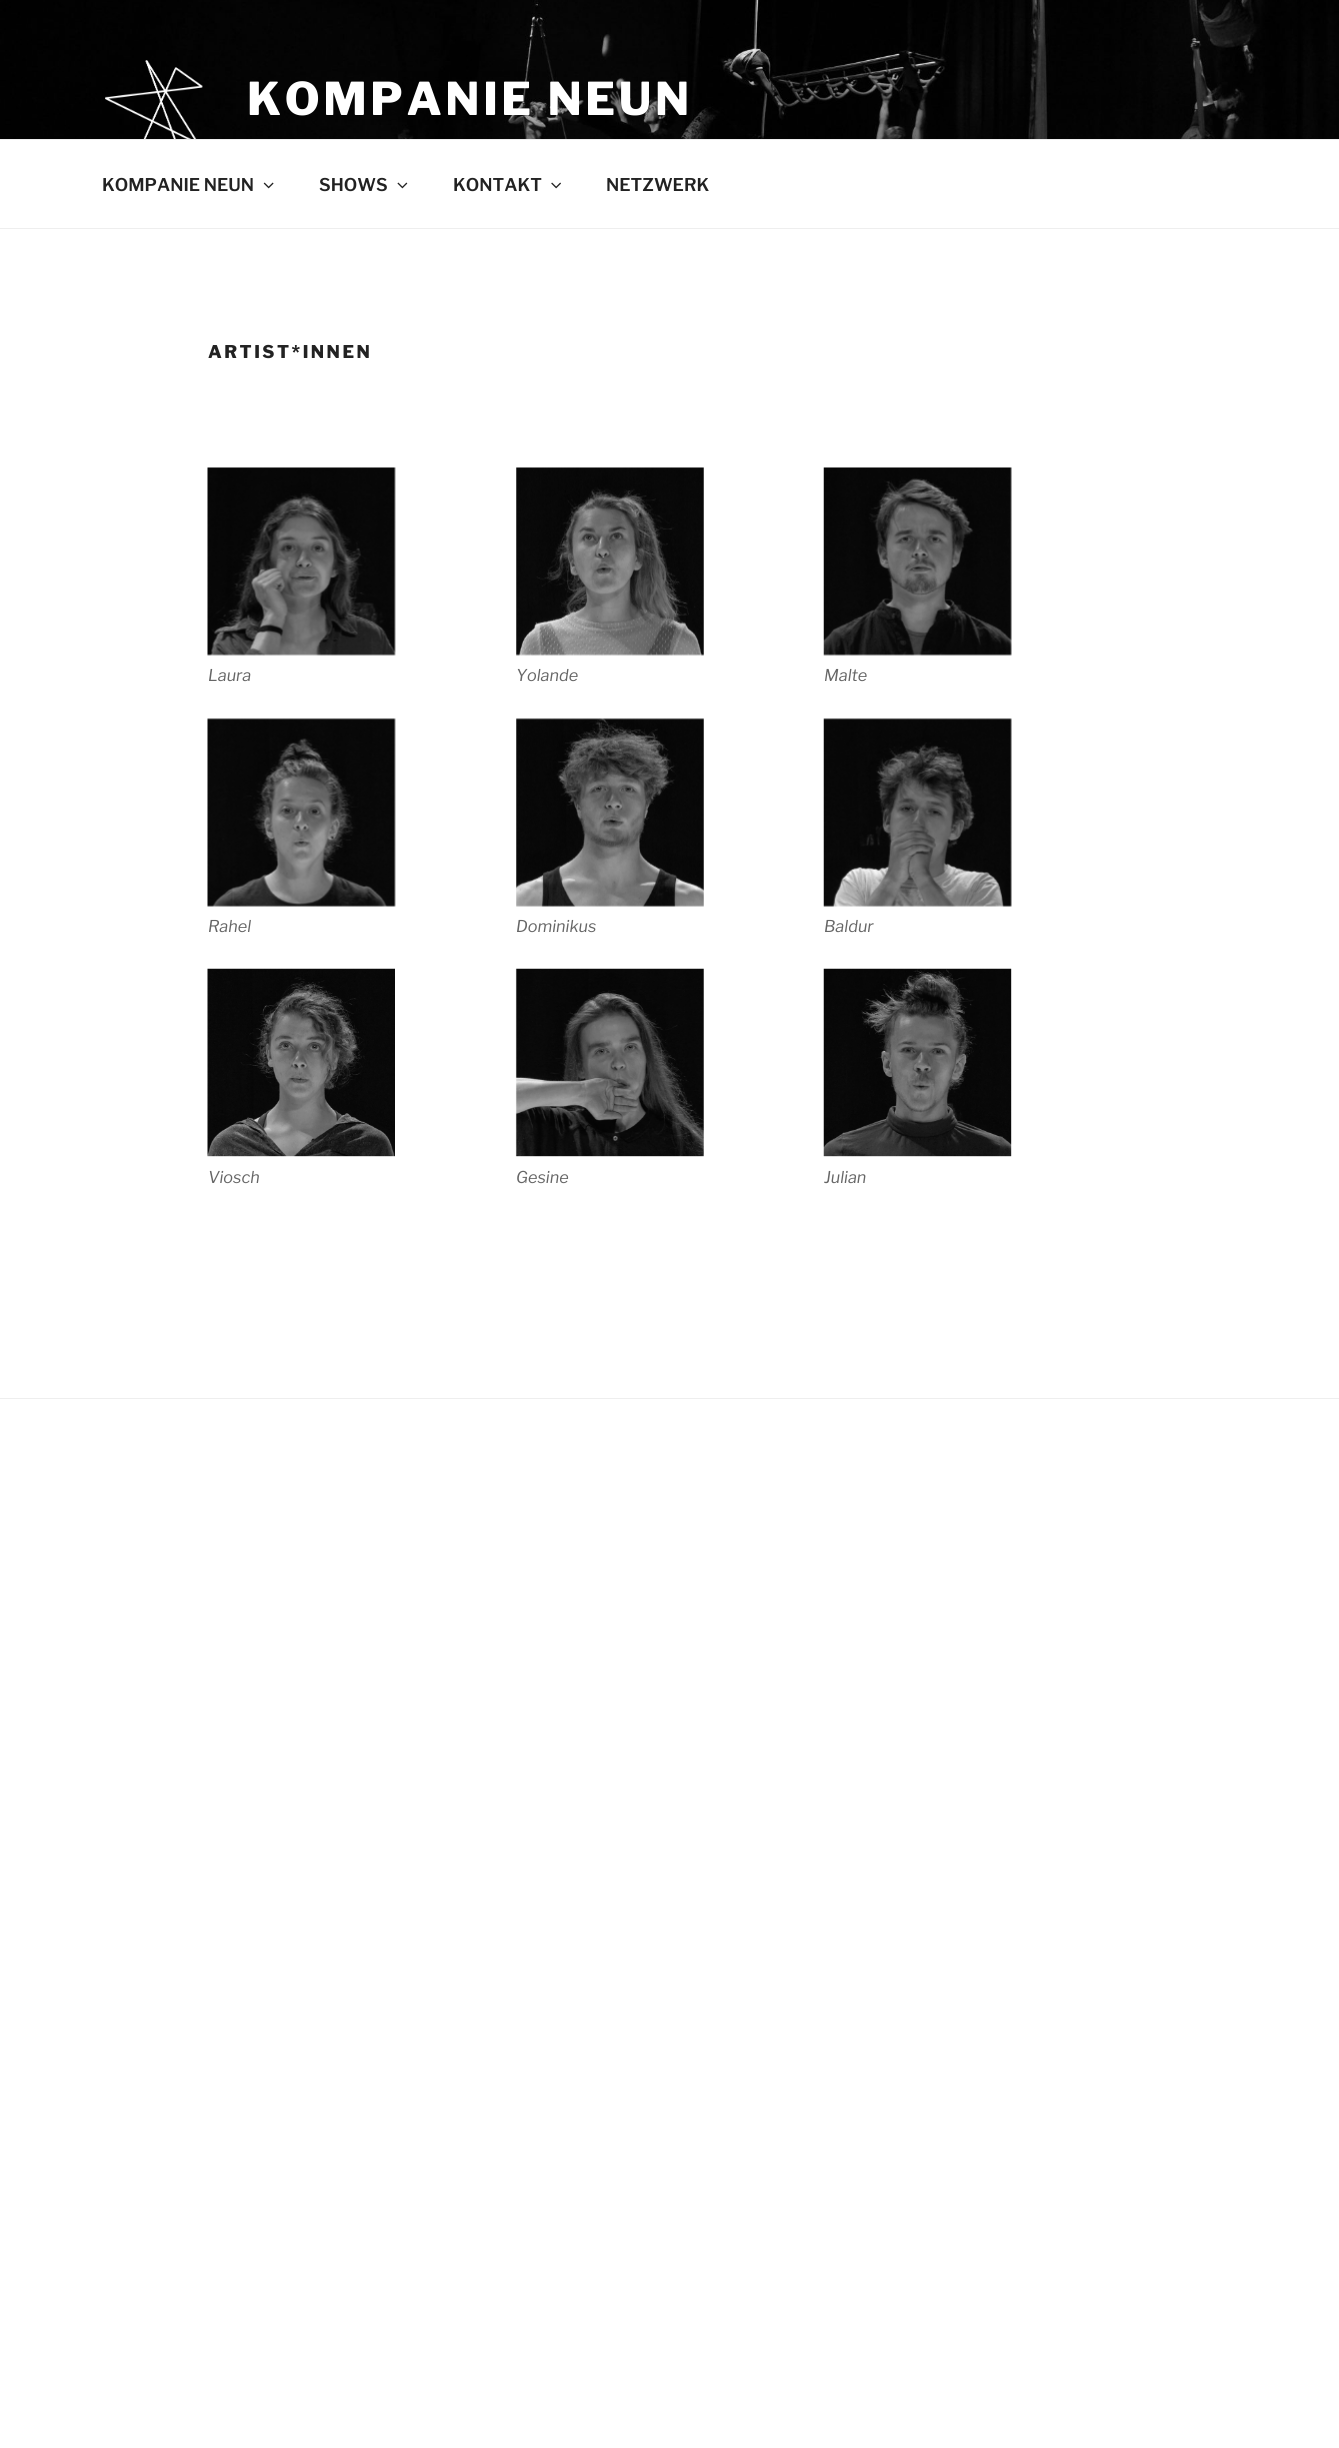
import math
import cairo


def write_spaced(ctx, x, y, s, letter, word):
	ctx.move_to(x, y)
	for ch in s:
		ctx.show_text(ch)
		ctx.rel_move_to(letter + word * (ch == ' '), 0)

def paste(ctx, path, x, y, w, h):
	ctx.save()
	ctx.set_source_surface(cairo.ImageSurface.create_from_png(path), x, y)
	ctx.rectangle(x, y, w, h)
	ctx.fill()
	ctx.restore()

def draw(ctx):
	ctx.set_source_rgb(1, 1, 1)
	ctx.paint()
	paste(ctx, 'media/1.png', 0, 0, 1339, 139)
	gradient = cairo.LinearGradient(670, 0, 670, 229)
	gradient.add_color_stop_rgba(0, 0, 0, 0, 0)
	gradient.add_color_stop_rgba(0.75, 0, 0, 0, 0.3)
	gradient.add_color_stop_rgba(1, 0, 0, 0, 0.3)
	ctx.set_source(gradient)
	ctx.rectangle(398, 12, 856, 127)
	ctx.fill()
	paste(ctx, 'media/2.png', 105, 60, 98, 79)
	ctx.select_font_face('Libre Franklin ExtraBold')
	ctx.set_font_size(45)
	ctx.set_source_rgb(1, 1, 1)
	write_spaced(ctx, 247, 115, 'KOMPANIE NEUN', 3.6, 0)
	ctx.set_source_rgb(0.933, 0.933, 0.933)
	ctx.rectangle(0, 139, 1339, 1)
	ctx.fill()
	ctx.rectangle(0, 228, 1339, 1)
	ctx.fill()
	ctx.select_font_face('Libre Franklin SemiBold')
	ctx.set_font_size(17.5)
	ctx.set_source_rgb(0.133, 0.133, 0.133)
	ctx.move_to(102, 191)
	ctx.show_text('KOMPANIE NEUN')
	paste(ctx, 'media/3.png', 263, 182, 11, 7)
	ctx.move_to(319, 191)
	ctx.show_text('SHOWS')
	paste(ctx, 'media/4.png', 397, 182, 11, 7)
	ctx.move_to(453, 191)
	ctx.show_text('KONTAKT')
	paste(ctx, 'media/5.png', 551, 182, 10, 7)
	ctx.move_to(606, 191)
	ctx.show_text('NETZWERK')
	ctx.select_font_face('Libre Franklin ExtraBold')
	write_spaced(ctx, 208, 358, 'ARTIST*INNEN', 2.5, 0)
	paste(ctx, 'media/6.png', 207, 467, 189, 189)
	ctx.select_font_face('Libre Franklin', cairo.FONT_SLANT_ITALIC)
	ctx.set_font_size(16.25)
	ctx.set_source_rgb(0.4, 0.4, 0.4)
	ctx.move_to(208, 681)
	ctx.show_text('Laura')
	paste(ctx, 'media/7.png', 516, 467, 188, 189)
	ctx.move_to(516, 681)
	ctx.show_text('Yolande')
	paste(ctx, 'media/8.png', 823, 467, 189, 189)
	ctx.move_to(824, 681)
	ctx.show_text('Malte')
	paste(ctx, 'media/9.png', 207, 718, 189, 189)
	ctx.move_to(208, 932)
	ctx.show_text('Rahel')
	paste(ctx, 'media/10.png', 516, 718, 188, 189)
	ctx.move_to(516, 932)
	ctx.show_text('Dominikus')
	paste(ctx, 'media/11.png', 823, 718, 189, 189)
	ctx.move_to(824, 932)
	ctx.show_text('Baldur')
	paste(ctx, 'media/12.png', 207, 968, 188, 189)
	ctx.move_to(208, 1183)
	ctx.show_text('Viosch')
	paste(ctx, 'media/13.png', 515, 968, 189, 189)
	ctx.move_to(516, 1183)
	ctx.show_text('Gesine')
	paste(ctx, 'media/14.png', 823, 968, 189, 189)
	ctx.move_to(824, 1183)
	ctx.show_text('Julian')
	ctx.set_source_rgb(0.933, 0.933, 0.933)
	ctx.rectangle(0, 1398, 1339, 1)
	ctx.fill()


surface = cairo.ImageSurface(cairo.FORMAT_RGB24, 1339, 2448)
ctx = cairo.Context(surface)
options = cairo.FontOptions()
options.set_hint_metrics(cairo.HINT_METRICS_OFF)
options.set_hint_style(cairo.HINT_STYLE_NONE)
ctx.set_font_options(options)
ctx.set_miter_limit(4)
draw(ctx)
surface.write_to_png('image.png')
